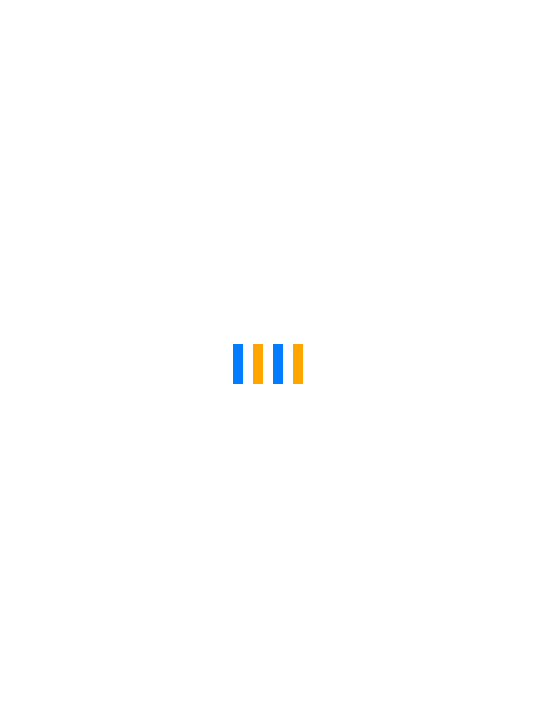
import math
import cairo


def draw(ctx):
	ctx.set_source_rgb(1, 1, 1)
	ctx.paint()
	ctx.set_source_rgb(0.012, 0.486, 1)
	ctx.rectangle(233, 344, 10, 40)
	ctx.fill()
	ctx.set_source_rgb(1, 0.647, 0)
	ctx.rectangle(253, 344, 10, 40)
	ctx.fill()
	ctx.set_source_rgb(0.012, 0.486, 1)
	ctx.rectangle(273, 344, 10, 40)
	ctx.fill()
	ctx.set_source_rgb(1, 0.647, 0)
	ctx.rectangle(293, 344, 10, 40)
	ctx.fill()


surface = cairo.ImageSurface(cairo.FORMAT_RGB24, 536, 728)
ctx = cairo.Context(surface)
options = cairo.FontOptions()
options.set_hint_metrics(cairo.HINT_METRICS_OFF)
options.set_hint_style(cairo.HINT_STYLE_NONE)
ctx.set_font_options(options)
ctx.set_miter_limit(4)
draw(ctx)
surface.write_to_png('image.png')
